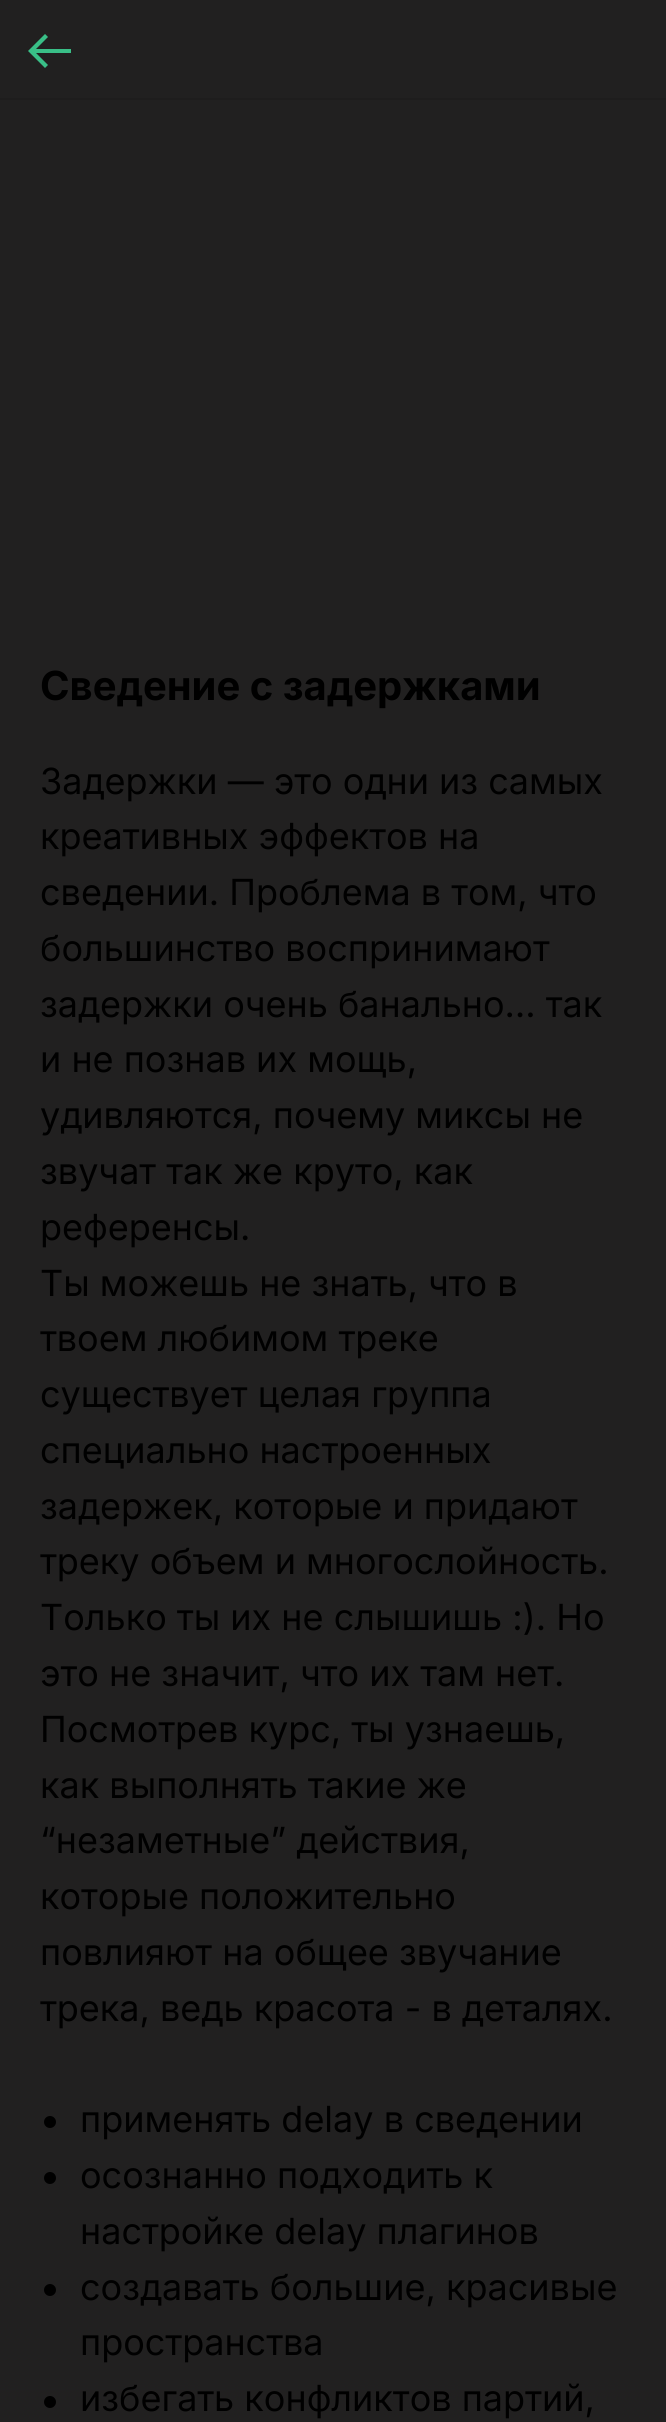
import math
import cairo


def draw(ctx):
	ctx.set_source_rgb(0.129, 0.125, 0.125)
	ctx.paint()
	ctx.set_source_rgb(0.118, 0.114, 0.114)
	ctx.rectangle(0, 98, 666, 2)
	ctx.fill()
	ctx.set_source_rgb(0.224, 0.749, 0.529)
	ctx.new_path()
	ctx.move_to(45, 34)
	ctx.line_to(48, 37)
	ctx.line_to(36, 49)
	ctx.line_to(71, 49)
	ctx.line_to(71, 53)
	ctx.line_to(36, 53)
	ctx.line_to(48, 65)
	ctx.line_to(45, 68)
	ctx.line_to(28, 51)
	ctx.close_path()
	ctx.fill()
	ctx.select_font_face('Inter', cairo.FONT_SLANT_NORMAL, cairo.FONT_WEIGHT_BOLD)
	ctx.set_font_size(40)
	ctx.set_source_rgb(0, 0, 0)
	ctx.move_to(40, 700)
	ctx.show_text('Сведение с задержками')
	ctx.select_font_face('Inter')
	ctx.set_font_size(36)
	for x, y, s in [
		(40, 794, 'Задержки — это одни из самых'),
		(40, 849, 'креативных эффектов на'),
		(40, 905, 'сведении. Проблема в том, что'),
		(40, 961, 'большинство воспринимают'),
		(40, 1017, 'задержки очень банально… так'),
		(40, 1072, 'и не познав их мощь,'),
		(40, 1128, 'удивляются, почему миксы не'),
		(40, 1184, 'звучат так же круто, как'),
		(40, 1240, 'референсы.'),
		(40, 1296, 'Ты можешь не знать, что в'),
		(40, 1351, 'твоем любимом треке'),
		(40, 1407, 'существует целая группа'),
		(40, 1463, 'специально настроенных'),
		(40, 1519, 'задержек, которые и придают'),
		(40, 1574, 'треку объем и многослойность.'),
		(40, 1630, 'Только ты их не слышишь :). Но'),
		(40, 1686, 'это не значит, что их там нет.'),
		(40, 1742, 'Посмотрев курс, ты узнаешь,'),
		(40, 1798, 'как выполнять такие же'),
		(40, 1853, '“незаметные” действия,'),
		(40, 1909, 'которые положительно'),
		(40, 1965, 'повлияют на общее звучание'),
		(40, 2021, 'трека, ведь красота - в деталях.'),
	]:
		ctx.move_to(x, y)
		ctx.show_text(s)
	ctx.new_path()
	ctx.arc(50, 2122, 6, 0, 2 * math.pi)
	ctx.fill()
	ctx.move_to(80, 2132)
	ctx.show_text('применять delay в сведении')
	ctx.new_path()
	ctx.arc(50, 2178, 6, 0, 2 * math.pi)
	ctx.fill()
	ctx.move_to(80, 2188)
	ctx.show_text('осознанно подходить к')
	ctx.move_to(80, 2244)
	ctx.show_text('настройке delay плагинов')
	ctx.new_path()
	ctx.arc(50, 2290, 6, 0, 2 * math.pi)
	ctx.fill()
	ctx.move_to(80, 2300)
	ctx.show_text('создавать большие, красивые')
	ctx.move_to(80, 2355)
	ctx.show_text('пространства')
	ctx.new_path()
	ctx.arc(50, 2402, 6, 0, 2 * math.pi)
	ctx.fill()
	ctx.move_to(80, 2411)
	ctx.show_text('избегать конфликтов партий,')


surface = cairo.ImageSurface(cairo.FORMAT_RGB24, 666, 2422)
ctx = cairo.Context(surface)
options = cairo.FontOptions()
options.set_hint_metrics(cairo.HINT_METRICS_OFF)
options.set_hint_style(cairo.HINT_STYLE_NONE)
ctx.set_font_options(options)
ctx.set_miter_limit(4)
draw(ctx)
surface.write_to_png('image.png')
